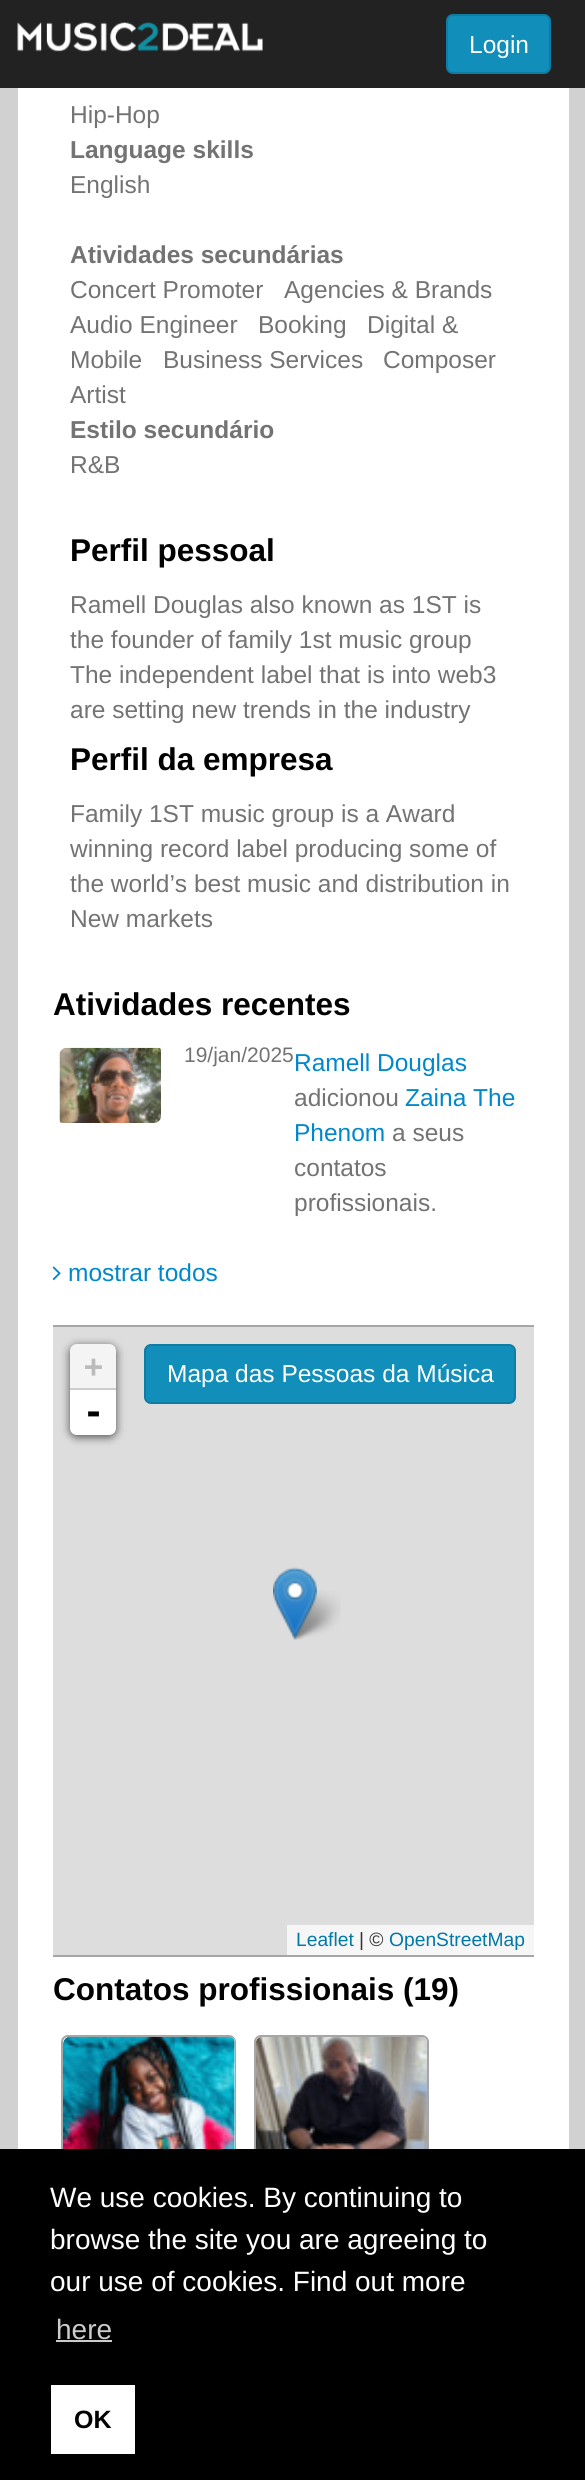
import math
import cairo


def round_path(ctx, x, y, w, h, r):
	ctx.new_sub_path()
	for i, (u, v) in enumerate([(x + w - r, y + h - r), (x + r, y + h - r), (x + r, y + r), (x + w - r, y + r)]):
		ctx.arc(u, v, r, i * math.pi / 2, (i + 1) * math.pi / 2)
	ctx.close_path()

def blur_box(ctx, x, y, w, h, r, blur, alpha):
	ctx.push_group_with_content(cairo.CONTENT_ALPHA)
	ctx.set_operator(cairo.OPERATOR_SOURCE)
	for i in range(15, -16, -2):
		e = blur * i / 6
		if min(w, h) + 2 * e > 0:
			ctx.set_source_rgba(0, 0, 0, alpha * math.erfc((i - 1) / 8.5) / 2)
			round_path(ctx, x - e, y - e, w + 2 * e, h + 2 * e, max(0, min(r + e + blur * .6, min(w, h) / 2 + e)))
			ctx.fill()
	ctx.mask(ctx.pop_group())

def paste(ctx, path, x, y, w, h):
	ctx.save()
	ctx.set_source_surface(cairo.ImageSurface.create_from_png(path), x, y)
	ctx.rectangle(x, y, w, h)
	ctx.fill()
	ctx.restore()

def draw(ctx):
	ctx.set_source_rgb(0.82, 0.82, 0.82)
	ctx.paint()
	ctx.set_source_rgb(0.133, 0.133, 0.133)
	ctx.rectangle(0, 0, 585, 88)
	ctx.fill()
	paste(ctx, 'media/1.png', 17, 22, 246, 30)
	ctx.set_source_rgb(0.067, 0.557, 0.729)
	round_path(ctx, 447, 15, 103, 58, 6)
	ctx.fill_preserve()
	ctx.set_source_rgb(0.059, 0.486, 0.639)
	ctx.stroke()
	ctx.select_font_face('Liberation Sans')
	ctx.set_font_size(24.5)
	ctx.set_source_rgb(1, 1, 1)
	ctx.move_to(469, 53)
	ctx.show_text('Login')
	ctx.rectangle(18, 88, 551, 2061)
	ctx.fill()
	ctx.set_source_rgb(0.451, 0.451, 0.451)
	ctx.move_to(70, 123)
	ctx.show_text('Hip-Hop')
	ctx.select_font_face('Liberation Sans', cairo.FONT_SLANT_NORMAL, cairo.FONT_WEIGHT_BOLD)
	ctx.move_to(70, 158)
	ctx.show_text('Language skills')
	ctx.select_font_face('Liberation Sans')
	ctx.move_to(70, 193)
	ctx.show_text('English')
	ctx.select_font_face('Liberation Sans', cairo.FONT_SLANT_NORMAL, cairo.FONT_WEIGHT_BOLD)
	ctx.move_to(70, 263)
	ctx.show_text('Atividades secundárias')
	ctx.select_font_face('Liberation Sans')
	for x, y, s in [
		(70, 298, 'Concert Promoter'),
		(284, 298, 'Agencies & Brands'),
		(70, 333, 'Audio Engineer'),
		(258, 333, 'Booking'),
		(367, 333, 'Digital &'),
		(70, 368, 'Mobile'),
		(163, 368, 'Business Services'),
		(383, 368, 'Composer'),
		(70, 403, 'Artist'),
	]:
		ctx.move_to(x, y)
		ctx.show_text(s)
	ctx.select_font_face('Liberation Sans', cairo.FONT_SLANT_NORMAL, cairo.FONT_WEIGHT_BOLD)
	ctx.move_to(70, 438)
	ctx.show_text('Estilo secundário')
	ctx.select_font_face('Liberation Sans')
	ctx.move_to(70, 473)
	ctx.show_text('R&B')
	ctx.select_font_face('Liberation Sans', cairo.FONT_SLANT_NORMAL, cairo.FONT_WEIGHT_BOLD)
	ctx.set_font_size(31.5)
	ctx.set_source_rgb(0, 0, 0)
	ctx.move_to(70, 561)
	ctx.show_text('Perfil pessoal')
	ctx.select_font_face('Liberation Sans')
	ctx.set_font_size(24.5)
	ctx.set_source_rgb(0.451, 0.451, 0.451)
	for x, y, s in [
		(70, 613, 'Ramell Douglas also known as 1ST is'),
		(70, 648, 'the founder of family 1st music group'),
		(70, 683, 'The independent label that is into web3'),
		(70, 718, 'are setting new trends in the industry'),
	]:
		ctx.move_to(x, y)
		ctx.show_text(s)
	ctx.select_font_face('Liberation Sans', cairo.FONT_SLANT_NORMAL, cairo.FONT_WEIGHT_BOLD)
	ctx.set_font_size(31.5)
	ctx.set_source_rgb(0, 0, 0)
	ctx.move_to(70, 770)
	ctx.show_text('Perfil da empresa')
	ctx.select_font_face('Liberation Sans')
	ctx.set_font_size(24.5)
	ctx.set_source_rgb(0.451, 0.451, 0.451)
	for x, y, s in [
		(70, 822, 'Family 1ST music group is a Award'),
		(70, 857, 'winning record label producing some of'),
		(70, 892, 'the world’s best music and distribution in'),
		(70, 927, 'New markets'),
	]:
		ctx.move_to(x, y)
		ctx.show_text(s)
	ctx.set_source_rgb(0.651, 0.651, 0.651)
	ctx.rectangle(53, 1325, 481, 2)
	ctx.fill()
	ctx.select_font_face('Liberation Sans', cairo.FONT_SLANT_NORMAL, cairo.FONT_WEIGHT_BOLD)
	ctx.set_font_size(31.5)
	ctx.set_source_rgb(0, 0, 0)
	ctx.move_to(53, 1015)
	ctx.show_text('Atividades recentes')
	paste(ctx, 'media/2.png', 59, 1047, 102, 76)
	ctx.select_font_face('Liberation Sans')
	ctx.set_font_size(21)
	ctx.set_source_rgb(0.451, 0.451, 0.451)
	ctx.move_to(184, 1062)
	ctx.show_text('19/jan/2025')
	ctx.set_font_size(24.5)
	ctx.set_source_rgb(0, 0.533, 0.8)
	ctx.move_to(294, 1071)
	ctx.show_text('Ramell Douglas')
	ctx.set_source_rgb(0.451, 0.451, 0.451)
	ctx.move_to(294, 1106)
	ctx.show_text('adicionou')
	ctx.set_source_rgb(0, 0.533, 0.8)
	ctx.move_to(405, 1106)
	ctx.show_text('Zaina The')
	ctx.move_to(294, 1141)
	ctx.show_text('Phenom')
	ctx.set_source_rgb(0.451, 0.451, 0.451)
	for x, y, s in [
		(392, 1141, 'a seus'),
		(294, 1176, 'contatos'),
		(294, 1211, 'profissionais.'),
	]:
		ctx.move_to(x, y)
		ctx.show_text(s)
	paste(ctx, 'media/3.png', 52, 1266, 9, 15)
	ctx.set_source_rgb(0, 0.533, 0.8)
	ctx.move_to(68, 1281)
	ctx.show_text('mostrar todos')
	ctx.set_source_rgb(0.867, 0.867, 0.867)
	ctx.rectangle(53, 1327, 481, 628)
	ctx.fill()
	ctx.set_source_rgb(0.651, 0.651, 0.651)
	ctx.rectangle(53, 1955, 481, 2)
	ctx.fill()
	ctx.set_source_rgb(0, 0, 0)
	blur_box(ctx, 70, 1346, 46, 91, 7, 4.5, 0.65)
	ctx.set_source_rgb(0.957, 0.957, 0.957)
	ctx.new_path()
	ctx.move_to(77, 1344)
	ctx.line_to(109, 1344)
	ctx.curve_to(113, 1344, 116, 1347, 116, 1351)
	ctx.line_to(116, 1390)
	ctx.line_to(70, 1390)
	ctx.line_to(70, 1351)
	ctx.curve_to(70, 1347, 73, 1344, 77, 1344)
	ctx.close_path()
	ctx.fill()
	ctx.set_source_rgb(0.8, 0.8, 0.8)
	ctx.rectangle(70, 1388, 46, 2)
	ctx.fill()
	ctx.select_font_face('DejaVu Sans Mono', cairo.FONT_SLANT_NORMAL, cairo.FONT_WEIGHT_BOLD)
	ctx.set_font_size(31.5)
	ctx.set_source_rgb(0.733, 0.733, 0.733)
	ctx.move_to(84, 1377)
	ctx.show_text('+')
	ctx.set_source_rgb(1, 1, 1)
	ctx.new_path()
	ctx.move_to(70, 1390)
	ctx.line_to(116, 1390)
	ctx.line_to(116, 1428)
	ctx.curve_to(116, 1432, 113, 1435, 109, 1435)
	ctx.line_to(77, 1435)
	ctx.curve_to(73, 1435, 70, 1432, 70, 1428)
	ctx.close_path()
	ctx.fill()
	ctx.set_font_size(35)
	ctx.set_source_rgb(0, 0, 0)
	ctx.move_to(83, 1424)
	ctx.show_text('-')
	ctx.set_source_rgb(0.067, 0.557, 0.729)
	round_path(ctx, 145, 1345, 370, 58, 6)
	ctx.fill_preserve()
	ctx.set_source_rgb(0.059, 0.486, 0.639)
	ctx.stroke()
	ctx.select_font_face('Liberation Sans')
	ctx.set_font_size(24.5)
	ctx.set_source_rgb(1, 1, 1)
	ctx.move_to(167, 1382)
	ctx.show_text('Mapa das Pessoas da Música')
	ctx.set_source_rgb(0.961, 0.961, 0.961)
	ctx.rectangle(287, 1925, 247, 30)
	ctx.fill()
	ctx.set_font_size(19.25)
	ctx.set_source_rgb(0, 0.471, 0.659)
	ctx.move_to(296, 1946)
	ctx.show_text('Leaflet')
	ctx.set_source_rgb(0.2, 0.2, 0.2)
	ctx.move_to(359, 1946)
	ctx.show_text('| ©')
	ctx.set_source_rgb(0, 0.471, 0.659)
	ctx.move_to(389, 1946)
	ctx.show_text('OpenStreetMap')
	paste(ctx, 'media/5.png', 289, 1590, 52, 50)
	paste(ctx, 'media/4.png', 273, 1567, 44, 73)
	ctx.select_font_face('Liberation Sans', cairo.FONT_SLANT_NORMAL, cairo.FONT_WEIGHT_BOLD)
	ctx.set_font_size(31.5)
	ctx.set_source_rgb(0, 0, 0)
	ctx.move_to(53, 2000)
	ctx.show_text('Contatos profissionais (19)')
	round_path(ctx, 62, 2036, 173, 236, 6)
	ctx.set_source_rgb(0.651, 0.651, 0.651)
	ctx.stroke()
	ctx.save()
	round_path(ctx, 63, 2037, 172, 235, 5)
	ctx.clip()
	ctx.set_source_rgb(1, 1, 1)
	ctx.new_path()
	ctx.move_to(70, 2037)
	ctx.line_to(230, 2037)
	ctx.curve_to(233, 2037, 235, 2039, 235, 2042)
	ctx.line_to(235, 2170)
	ctx.line_to(70, 2170)
	ctx.curve_to(66, 2170, 63, 2167, 63, 2163)
	ctx.line_to(63, 2044)
	ctx.curve_to(63, 2040, 66, 2037, 70, 2037)
	ctx.close_path()
	ctx.fill()
	ctx.restore()
	paste(ctx, 'media/6.png', 63, 2036, 172, 113)
	round_path(ctx, 255, 2036, 173, 236, 6)
	ctx.stroke()
	paste(ctx, 'media/7.png', 255, 2037, 172, 112)
	ctx.set_source_rgb(0, 0, 0)
	ctx.rectangle(0, 2149, 585, 331)
	ctx.fill()
	ctx.select_font_face('Liberation Sans')
	ctx.set_font_size(28)
	ctx.set_source_rgb(1, 1, 1)
	for x, y, s in [
		(50, 2207, 'We use cookies. By continuing to'),
		(50, 2249, 'browse the site you are agreeing to'),
		(50, 2291, 'our use of cookies. Find out more'),
	]:
		ctx.move_to(x, y)
		ctx.show_text(s)
	ctx.set_source_rgb(0.8, 0.8, 0.8)
	ctx.move_to(56, 2339)
	ctx.show_text('here')
	ctx.rectangle(56, 2340, 56, 2)
	ctx.fill()
	ctx.set_source_rgb(1, 1, 1)
	ctx.rectangle(51, 2385, 84, 69)
	ctx.fill()
	ctx.select_font_face('Liberation Sans', cairo.FONT_SLANT_NORMAL, cairo.FONT_WEIGHT_BOLD)
	ctx.set_font_size(25)
	ctx.set_source_rgb(0, 0, 0)
	ctx.move_to(74, 2428)
	ctx.show_text('OK')


surface = cairo.ImageSurface(cairo.FORMAT_RGB24, 585, 2480)
ctx = cairo.Context(surface)
options = cairo.FontOptions()
options.set_hint_metrics(cairo.HINT_METRICS_OFF)
options.set_hint_style(cairo.HINT_STYLE_NONE)
ctx.set_font_options(options)
ctx.set_miter_limit(4)
draw(ctx)
surface.write_to_png('image.png')
